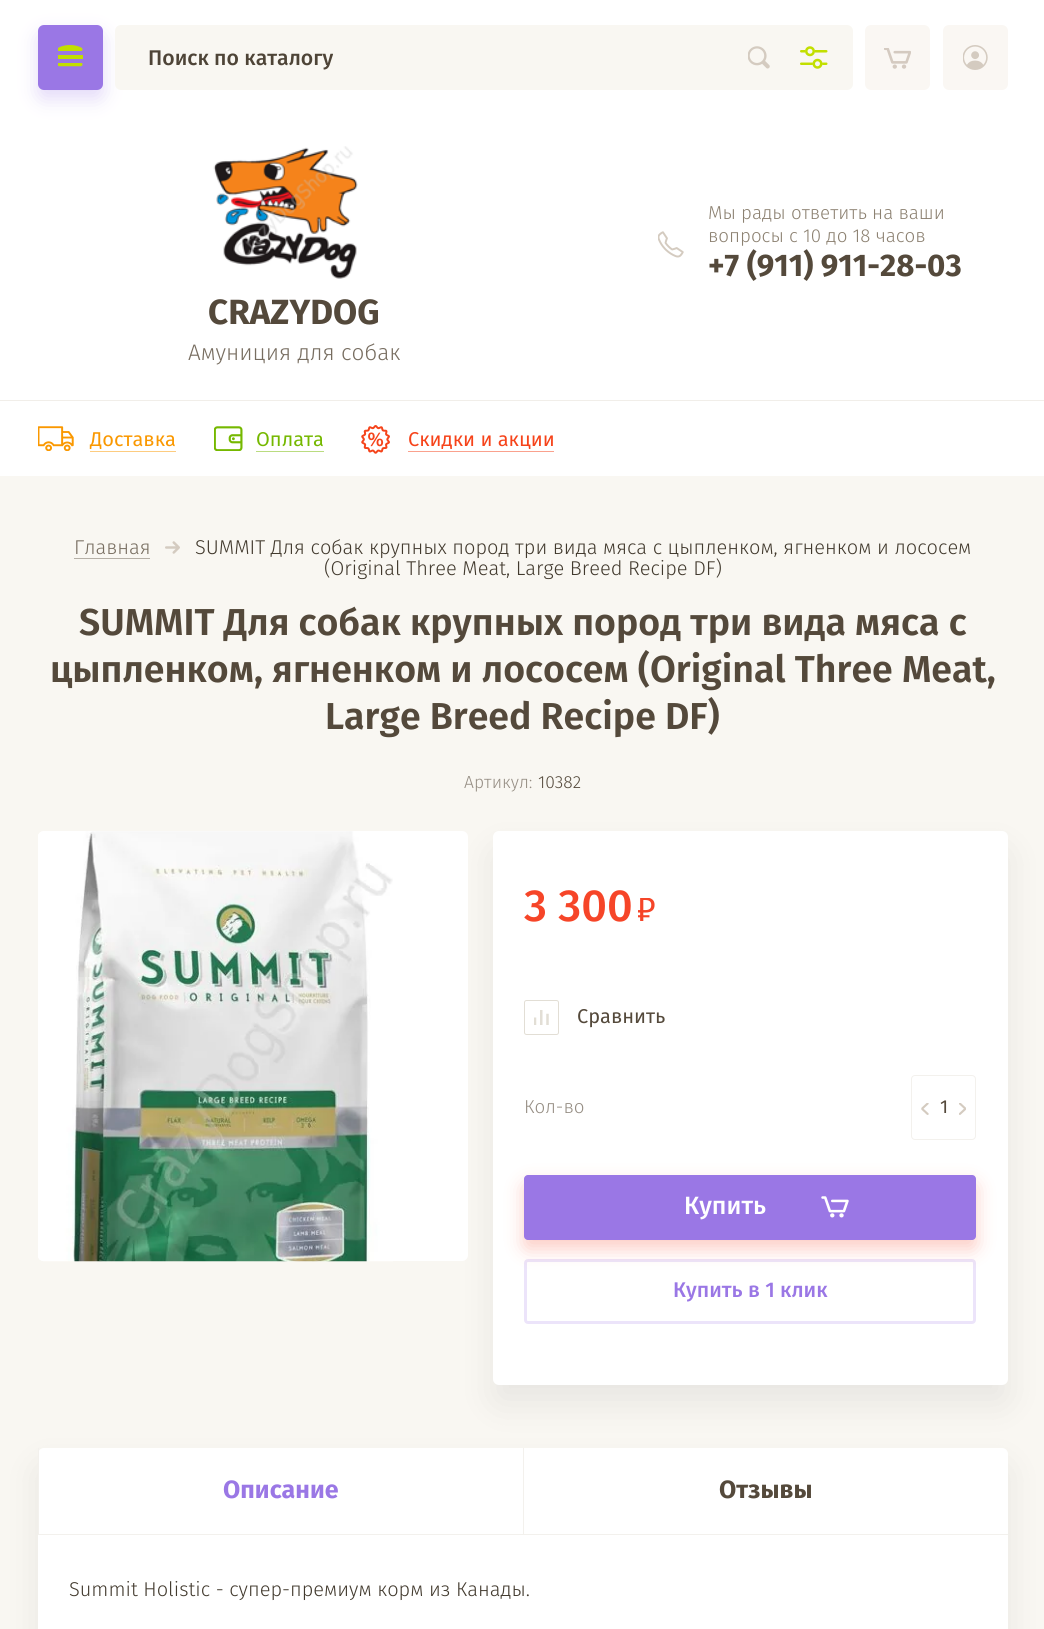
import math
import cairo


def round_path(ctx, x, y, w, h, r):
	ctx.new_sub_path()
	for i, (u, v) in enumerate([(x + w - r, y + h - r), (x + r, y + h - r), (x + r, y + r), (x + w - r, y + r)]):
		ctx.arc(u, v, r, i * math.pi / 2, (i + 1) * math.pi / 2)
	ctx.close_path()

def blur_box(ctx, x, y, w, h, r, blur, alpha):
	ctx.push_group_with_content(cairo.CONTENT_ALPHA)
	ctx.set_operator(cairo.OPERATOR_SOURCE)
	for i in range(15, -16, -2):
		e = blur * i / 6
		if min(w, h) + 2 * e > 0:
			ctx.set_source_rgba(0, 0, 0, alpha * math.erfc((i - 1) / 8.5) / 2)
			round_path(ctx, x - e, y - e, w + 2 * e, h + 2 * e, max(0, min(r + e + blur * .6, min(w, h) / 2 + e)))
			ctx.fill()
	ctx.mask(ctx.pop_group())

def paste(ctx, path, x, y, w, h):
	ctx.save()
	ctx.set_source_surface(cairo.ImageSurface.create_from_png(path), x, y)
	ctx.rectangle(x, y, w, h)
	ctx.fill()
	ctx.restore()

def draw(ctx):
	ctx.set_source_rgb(0.976, 0.965, 0.949)
	ctx.paint()
	ctx.set_source_rgb(1, 1, 1)
	ctx.rectangle(0, 0, 1044, 476)
	ctx.fill()
	ctx.set_source_rgb(0.604, 0.467, 0.898)
	blur_box(ctx, 38, 34, 65, 65, 6, 9.5, 0.27)
	ctx.set_source_rgb(0.604, 0.467, 0.898)
	round_path(ctx, 38, 25, 65, 65, 6)
	ctx.fill()
	ctx.set_source_rgb(0.761, 0.875, 0)
	ctx.rectangle(58, 55, 25, 4)
	ctx.fill()
	paste(ctx, 'media/1.png', 58, 45, 25, 6)
	paste(ctx, 'media/2.png', 58, 63, 25, 4)
	ctx.set_source_rgb(0.976, 0.965, 0.949)
	round_path(ctx, 115, 25, 738, 65, 6)
	ctx.fill()
	ctx.select_font_face('Fira Sans Medium')
	ctx.set_font_size(21.25)
	ctx.set_source_rgb(0.306, 0.267, 0.216)
	ctx.move_to(148, 65)
	ctx.show_text('Поиск по каталогу')
	paste(ctx, 'media/3.png', 748, 46, 22, 23)
	paste(ctx, 'media/4.png', 800, 46, 28, 23)
	ctx.set_source_rgb(0.98, 0.965, 0.953)
	round_path(ctx, 865, 25, 65, 65, 6)
	ctx.fill()
	paste(ctx, 'media/5.png', 884, 48, 27, 21)
	round_path(ctx, 943, 25, 65, 65, 6)
	ctx.fill()
	paste(ctx, 'media/6.png', 963, 45, 25, 25)
	paste(ctx, 'media/7.png', 658, 231, 26, 27)
	ctx.select_font_face('Fira Sans Light')
	ctx.set_font_size(18.75)
	ctx.set_source_rgb(0.549, 0.506, 0.443)
	ctx.move_to(708, 219)
	ctx.show_text('Мы рады ответить на ваши')
	ctx.move_to(708, 242)
	ctx.show_text('вопросы с 10 до 18 часов')
	ctx.select_font_face('Fira Sans', cairo.FONT_SLANT_NORMAL, cairo.FONT_WEIGHT_BOLD)
	ctx.set_font_size(31.25)
	ctx.set_source_rgb(0.329, 0.286, 0.231)
	ctx.move_to(708, 276)
	ctx.show_text('+7 (911) 911-28-03')
	paste(ctx, 'media/8.png', 213, 146, 145, 133)
	ctx.set_font_size(35)
	ctx.move_to(208, 324)
	ctx.show_text('CRAZYDOG')
	ctx.select_font_face('Fira Sans Light')
	ctx.set_font_size(22.5)
	ctx.set_source_rgb(0.467, 0.427, 0.376)
	ctx.move_to(188, 360)
	ctx.show_text('Амуниция для собак')
	ctx.set_source_rgb(0.945, 0.933, 0.914)
	ctx.rectangle(0, 400, 1044, 1)
	ctx.fill()
	paste(ctx, 'media/9.png', 38, 426, 36, 25)
	ctx.select_font_face('Fira Sans')
	ctx.set_font_size(20)
	ctx.set_source_rgb(0.98, 0.596, 0)
	ctx.move_to(90, 446)
	ctx.show_text('Доставка')
	ctx.set_source_rgb(0.992, 0.8, 0.502)
	ctx.rectangle(90, 451, 86, 1)
	ctx.fill()
	paste(ctx, 'media/10.png', 214, 426, 29, 25)
	ctx.set_source_rgb(0.459, 0.722, 0)
	ctx.move_to(256, 446)
	ctx.show_text('Оплата')
	ctx.set_source_rgb(0.729, 0.863, 0.502)
	ctx.rectangle(256, 451, 68, 1)
	ctx.fill()
	paste(ctx, 'media/11.png', 361, 425, 29, 29)
	ctx.set_source_rgb(0.961, 0.263, 0.102)
	ctx.move_to(408, 446)
	ctx.show_text('Скидки и акции')
	ctx.set_source_rgb(0.98, 0.631, 0.553)
	ctx.rectangle(408, 451, 146, 1)
	ctx.fill()
	ctx.set_source_rgb(0.71, 0.686, 0.651)
	ctx.rectangle(74, 558, 76, 1)
	ctx.fill()
	ctx.select_font_face('Fira Sans Light')
	ctx.set_source_rgb(0.467, 0.427, 0.376)
	ctx.move_to(74, 554)
	ctx.show_text('Главная')
	paste(ctx, 'media/12.png', 165, 541, 15, 13)
	ctx.set_source_rgb(0.259, 0.227, 0.18)
	ctx.move_to(195, 554)
	ctx.show_text('SUMMIT Для собак крупных пород три вида мяса с цыпленком, ягненком и лососем')
	ctx.move_to(324, 575)
	ctx.show_text('(Original Three Meat, Large Breed Recipe DF)')
	ctx.select_font_face('Fira Sans SemiBold')
	ctx.set_font_size(37.5)
	ctx.set_source_rgb(0.329, 0.286, 0.231)
	for x, y, s in [
		(79, 635, 'SUMMIT Для собак крупных пород три вида мяса с'),
		(50, 682, 'цыпленком, ягненком и лососем (Original Three Meat,'),
		(325, 729, 'Large Breed Recipe DF)'),
	]:
		ctx.move_to(x, y)
		ctx.show_text(s)
	ctx.select_font_face('Fira Sans Light')
	ctx.set_font_size(17.5)
	ctx.set_source_rgb(0.584, 0.553, 0.514)
	ctx.move_to(464, 788)
	ctx.show_text('Артикул:')
	ctx.set_source_rgb(0.329, 0.286, 0.231)
	ctx.move_to(538, 788)
	ctx.show_text('10382')
	ctx.set_source_rgb(0, 0, 0)
	blur_box(ctx, 493, 850, 515, 554, 6, 19, 0.07)
	ctx.set_source_rgb(1, 1, 1)
	round_path(ctx, 38, 831, 430, 430, 6)
	ctx.fill()
	paste(ctx, 'media/13.png', 38, 831, 355, 431)
	round_path(ctx, 493, 831, 515, 554, 6)
	ctx.fill()
	ctx.select_font_face('Fira Sans Medium')
	ctx.set_font_size(45)
	ctx.set_source_rgb(0.961, 0.271, 0.157)
	ctx.move_to(524, 921)
	ctx.show_text('3 300')
	paste(ctx, 'media/14.png', 638, 898, 17, 23)
	paste(ctx, 'media/15.png', 534, 1010, 15, 15)
	round_path(ctx, 524.5, 1000.5, 34, 34, 2)
	ctx.set_source_rgb(0.886, 0.871, 0.835)
	ctx.set_line_width(1)
	ctx.stroke()
	ctx.select_font_face('Fira Sans')
	ctx.set_font_size(20)
	ctx.set_source_rgb(0.329, 0.286, 0.231)
	ctx.move_to(577, 1023)
	ctx.show_text('Сравнить')
	ctx.select_font_face('Fira Sans Light')
	ctx.set_font_size(18.75)
	ctx.set_source_rgb(0.584, 0.553, 0.514)
	ctx.move_to(524, 1113)
	ctx.show_text('Кол-во')
	round_path(ctx, 911.5, 1075.5, 64, 64, 3.5)
	ctx.set_source_rgb(0.953, 0.945, 0.929)
	ctx.stroke()
	paste(ctx, 'media/16.png', 921, 1103, 8, 12)
	ctx.select_font_face('Fira Sans')
	ctx.set_source_rgb(0.329, 0.286, 0.231)
	ctx.move_to(940, 1113)
	ctx.show_text('1')
	paste(ctx, 'media/17.png', 959, 1103, 7, 12)
	round_path(ctx, 525.5, 1260.5, 449, 62, 2.5)
	ctx.set_source_rgb(0.922, 0.894, 0.98)
	ctx.set_line_width(3)
	ctx.stroke()
	ctx.set_source_rgb(0.961, 0.271, 0.157)
	blur_box(ctx, 524, 1184, 452, 65, 4, 9.5, 0.27)
	ctx.set_source_rgb(0.604, 0.467, 0.898)
	round_path(ctx, 524, 1175, 452, 65, 4)
	ctx.fill()
	ctx.select_font_face('Fira Sans Medium')
	ctx.set_font_size(25)
	ctx.set_source_rgb(1, 1, 1)
	ctx.move_to(684, 1214)
	ctx.show_text('Купить')
	paste(ctx, 'media/18.png', 821, 1196, 28, 22)
	ctx.set_font_size(21.25)
	ctx.set_source_rgb(0.604, 0.467, 0.898)
	ctx.move_to(673, 1297)
	ctx.show_text('Купить в 1 клик')
	ctx.set_source_rgb(0, 0, 0)
	blur_box(ctx, 38, 1466, 970, 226, 6, 19, 0.07)
	ctx.set_source_rgb(1, 1, 1)
	round_path(ctx, 38, 1448, 970, 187, 6)
	ctx.fill()
	ctx.set_source_rgb(0.953, 0.945, 0.929)
	ctx.rectangle(38, 1534, 970, 1)
	ctx.fill()
	ctx.rectangle(38, 1448, 1, 86)
	ctx.fill()
	ctx.select_font_face('Fira Sans', cairo.FONT_SLANT_NORMAL, cairo.FONT_WEIGHT_BOLD)
	ctx.set_font_size(25)
	ctx.set_source_rgb(0.604, 0.467, 0.898)
	ctx.move_to(223, 1498)
	ctx.show_text('Описание')
	ctx.set_source_rgb(0.953, 0.945, 0.929)
	ctx.rectangle(523, 1448, 1, 86)
	ctx.fill()
	ctx.set_source_rgb(0.329, 0.286, 0.231)
	ctx.move_to(719, 1498)
	ctx.show_text('Отзывы')
	ctx.select_font_face('Fira Sans Light')
	ctx.set_font_size(20)
	ctx.set_source_rgb(0.259, 0.227, 0.18)
	ctx.move_to(69, 1596)
	ctx.show_text('Summit Holistic - супер-премиум корм из Канады.')


surface = cairo.ImageSurface(cairo.FORMAT_RGB24, 1044, 1629)
ctx = cairo.Context(surface)
options = cairo.FontOptions()
options.set_hint_metrics(cairo.HINT_METRICS_OFF)
options.set_hint_style(cairo.HINT_STYLE_NONE)
ctx.set_font_options(options)
ctx.set_miter_limit(4)
draw(ctx)
surface.write_to_png('image.png')
